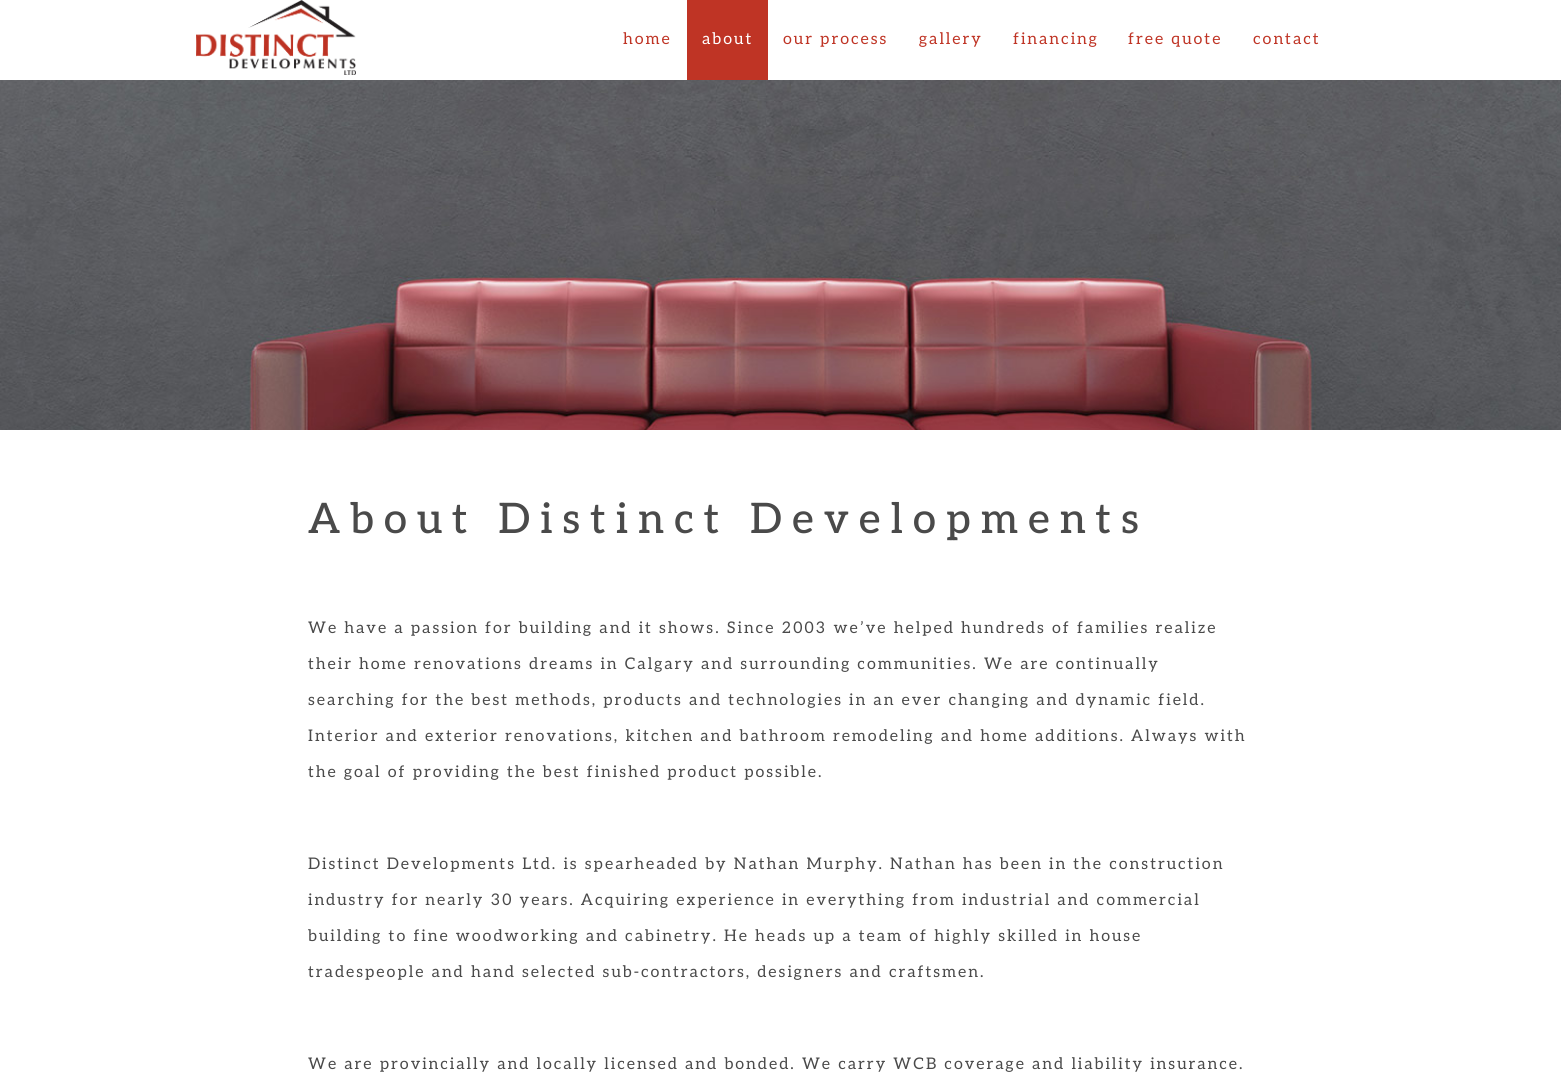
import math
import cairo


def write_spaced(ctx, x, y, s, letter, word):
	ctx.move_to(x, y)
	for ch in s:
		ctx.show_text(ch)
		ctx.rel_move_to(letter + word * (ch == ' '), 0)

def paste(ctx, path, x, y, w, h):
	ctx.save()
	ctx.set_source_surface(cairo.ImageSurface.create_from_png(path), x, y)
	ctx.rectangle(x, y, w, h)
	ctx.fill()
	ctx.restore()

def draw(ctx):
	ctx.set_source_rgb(1, 1, 1)
	ctx.paint()
	paste(ctx, 'media/1.png', 196, 0, 160, 75)
	ctx.select_font_face('Aleo')
	ctx.set_font_size(16)
	ctx.set_source_rgb(0.749, 0.204, 0.145)
	write_spaced(ctx, 623, 44, 'home', 2, 0)
	ctx.rectangle(687, 0, 81, 80)
	ctx.fill()
	ctx.set_source_rgb(1, 1, 1)
	write_spaced(ctx, 702, 44, 'about', 2, 0)
	ctx.set_source_rgb(0.749, 0.204, 0.145)
	for x, y, s in [
		(783, 44, 'our process'),
		(919, 44, 'gallery'),
		(1013, 44, 'financing'),
		(1128, 44, 'free quote'),
		(1253, 44, 'contact'),
	]:
		write_spaced(ctx, x, y, s, 2, 0)
	paste(ctx, 'media/2.png', 0, 80, 1561, 350)
	ctx.select_font_face('Aleo Medium')
	ctx.set_font_size(42)
	ctx.set_source_rgb(0.29, 0.29, 0.29)
	write_spaced(ctx, 308, 533, 'About Distinct Developments', 10, 0)
	ctx.select_font_face('Aleo')
	ctx.set_font_size(16)
	for x, y, s in [
		(308, 633, 'We have a passion for building and it shows. Since 2003 we’ve helped hundreds of families realize'),
		(308, 669, 'their home renovations dreams in Calgary and surrounding communities. We are continually'),
		(308, 705, 'searching for the best methods, products and technologies in an ever changing and dynamic field.'),
		(308, 741, 'Interior and exterior renovations, kitchen and bathroom remodeling and home additions. Always with'),
		(308, 777, 'the goal of providing the best finished product possible.'),
		(308, 869, 'Distinct Developments Ltd. is spearheaded by Nathan Murphy. Nathan has been in the construction'),
		(308, 905, 'industry for nearly 30 years. Acquiring experience in everything from industrial and commercial'),
		(308, 941, 'building to fine woodworking and cabinetry. He heads up a team of highly skilled in house'),
		(308, 977, 'tradespeople and hand selected sub-contractors, designers and craftsmen.'),
		(308, 1069, 'We are provincially and locally licensed and bonded. We carry WCB coverage and liability insurance.'),
	]:
		write_spaced(ctx, x, y, s, 2, 0)


surface = cairo.ImageSurface(cairo.FORMAT_RGB24, 1561, 1078)
ctx = cairo.Context(surface)
options = cairo.FontOptions()
options.set_hint_metrics(cairo.HINT_METRICS_OFF)
options.set_hint_style(cairo.HINT_STYLE_NONE)
ctx.set_font_options(options)
ctx.set_miter_limit(4)
draw(ctx)
surface.write_to_png('image.png')
